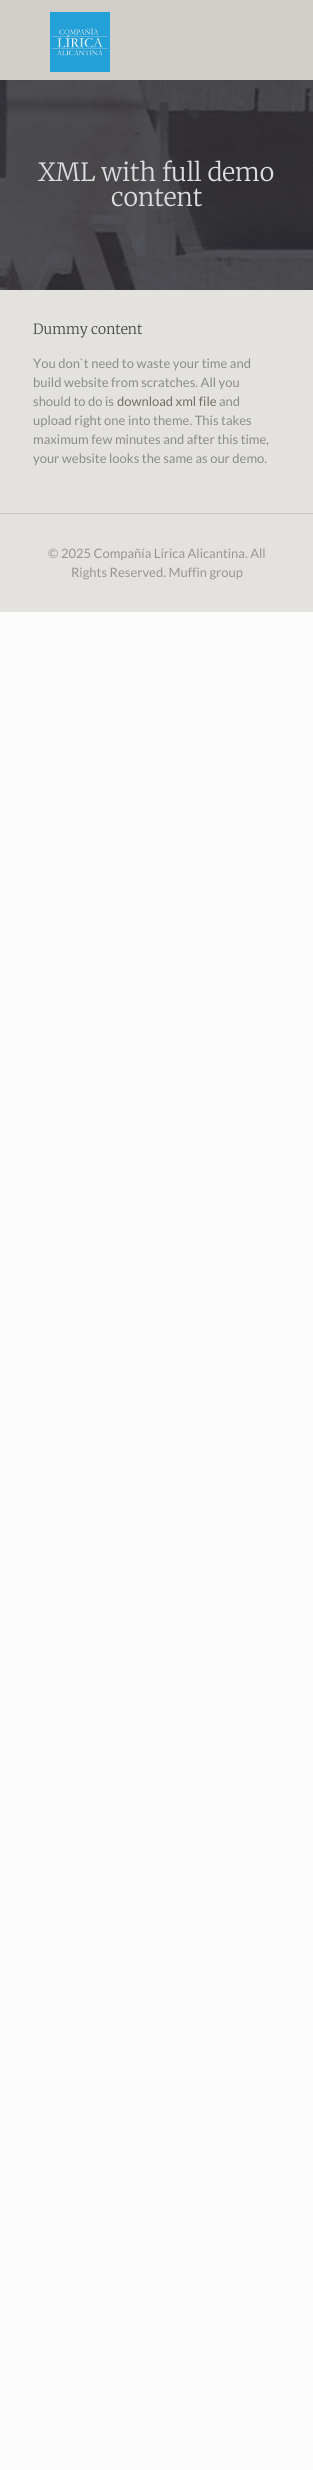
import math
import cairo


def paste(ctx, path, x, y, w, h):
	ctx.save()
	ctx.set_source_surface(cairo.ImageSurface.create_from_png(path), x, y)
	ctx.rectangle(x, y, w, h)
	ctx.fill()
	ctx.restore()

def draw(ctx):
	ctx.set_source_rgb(0.988, 0.988, 0.988)
	ctx.paint()
	ctx.set_source_rgb(0.89, 0.886, 0.875)
	ctx.rectangle(0, 290, 313, 223)
	ctx.fill()
	paste(ctx, 'media/1.png', 0, 80, 313, 210)
	ctx.set_source_rgb(0.824, 0.812, 0.796)
	ctx.rectangle(0, 0, 313, 80)
	ctx.fill()
	paste(ctx, 'media/2.png', 50, 12, 60, 60)
	ctx.select_font_face('Merriweather Light')
	ctx.set_font_size(25)
	ctx.set_source_rgb(0.871, 0.871, 0.871)
	ctx.move_to(38, 181)
	ctx.show_text('XML with full demo')
	ctx.move_to(111, 206)
	ctx.show_text('content')
	ctx.set_font_size(14)
	ctx.set_source_rgb(0.267, 0.267, 0.267)
	ctx.move_to(33, 334)
	ctx.show_text('Dummy content')
	ctx.select_font_face('Lato')
	ctx.set_font_size(13)
	ctx.set_source_rgb(0.549, 0.545, 0.545)
	for x, y, s in [
		(33, 368, 'You don`t need to waste your time and'),
		(33, 387, 'build website from scratches. All you'),
		(33, 406, 'should to do is'),
	]:
		ctx.move_to(x, y)
		ctx.show_text(s)
	ctx.set_source_rgb(0.463, 0.427, 0.384)
	ctx.move_to(117, 406)
	ctx.show_text('download xml file')
	ctx.set_source_rgb(0.549, 0.545, 0.545)
	for x, y, s in [
		(219, 406, 'and'),
		(33, 425, 'upload right one into theme. This takes'),
		(33, 444, 'maximum few minutes and after this time,'),
		(33, 463, 'your website looks the same as our demo.'),
	]:
		ctx.move_to(x, y)
		ctx.show_text(s)
	ctx.set_source_rgb(0.89, 0.886, 0.875)
	ctx.rectangle(0, 514, 313, 98)
	ctx.fill()
	ctx.set_source_rgb(0.8, 0.796, 0.788)
	ctx.rectangle(0, 513, 313, 1)
	ctx.fill()
	ctx.set_source_rgb(0.608, 0.584, 0.557)
	ctx.move_to(48, 558)
	ctx.show_text('© 2025 Compañía Lírica Alicantina. All')
	ctx.move_to(71, 577)
	ctx.show_text('Rights Reserved. Muffin group')


surface = cairo.ImageSurface(cairo.FORMAT_RGB24, 313, 2470)
ctx = cairo.Context(surface)
options = cairo.FontOptions()
options.set_hint_metrics(cairo.HINT_METRICS_OFF)
options.set_hint_style(cairo.HINT_STYLE_NONE)
ctx.set_font_options(options)
ctx.set_miter_limit(4)
draw(ctx)
surface.write_to_png('image.png')
